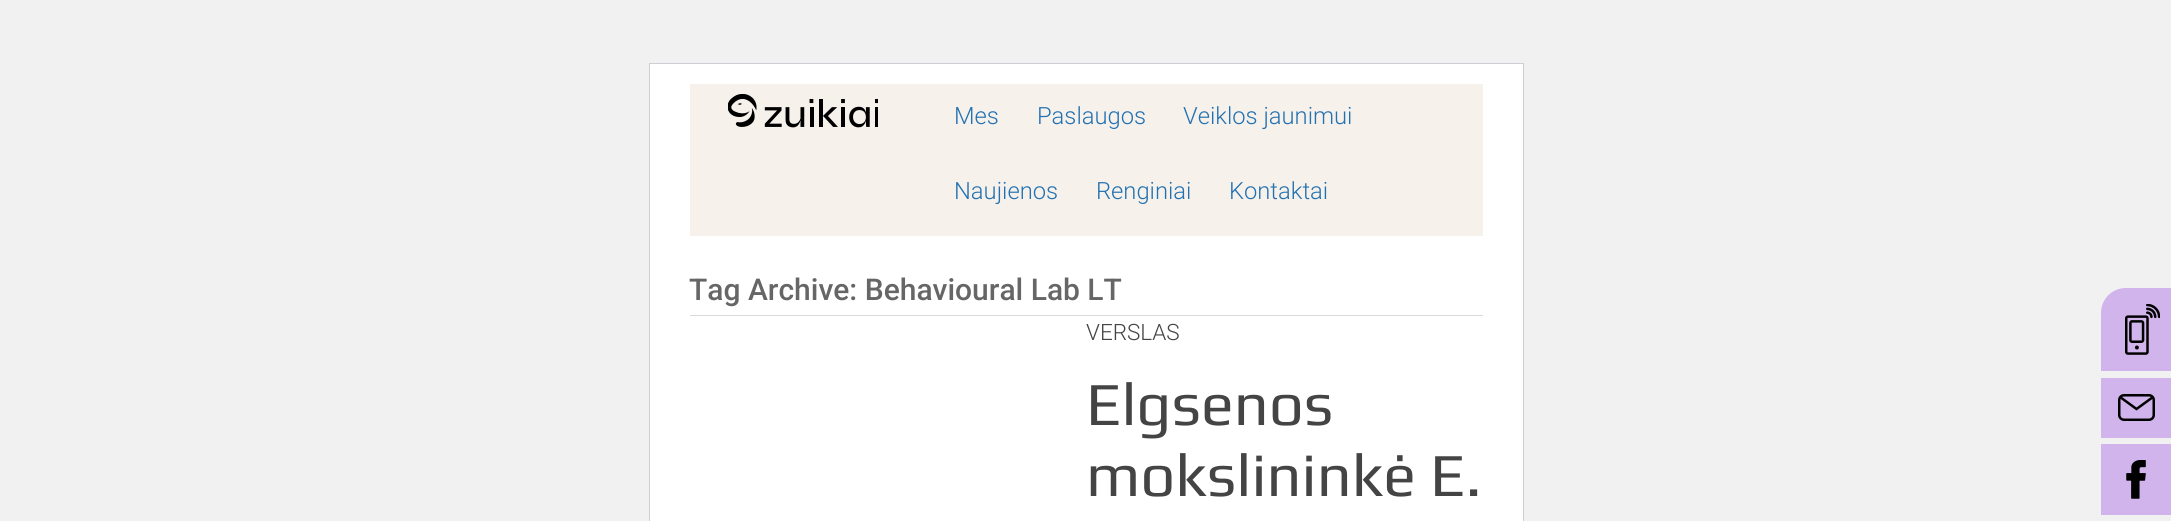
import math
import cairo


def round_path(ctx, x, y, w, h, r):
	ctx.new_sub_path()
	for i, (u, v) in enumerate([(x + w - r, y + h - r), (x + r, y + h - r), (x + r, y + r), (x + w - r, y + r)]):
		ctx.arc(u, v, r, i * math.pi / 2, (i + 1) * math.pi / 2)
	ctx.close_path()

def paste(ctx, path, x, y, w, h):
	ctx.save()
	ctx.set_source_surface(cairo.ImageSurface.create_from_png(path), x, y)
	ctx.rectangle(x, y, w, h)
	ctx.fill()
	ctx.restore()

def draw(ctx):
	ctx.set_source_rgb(0.945, 0.945, 0.945)
	ctx.paint()
	ctx.set_source_rgb(1, 1, 1)
	ctx.rectangle(649.5, 63.5, 874, 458)
	ctx.fill_preserve()
	ctx.set_source_rgb(0.8, 0.816, 0.831)
	ctx.set_line_width(1)
	ctx.stroke()
	ctx.set_source_rgb(0.965, 0.945, 0.922)
	ctx.rectangle(690, 84, 793, 152)
	ctx.fill()
	paste(ctx, 'media/1.png', 728, 94, 150, 34)
	ctx.select_font_face('Roboto Light')
	ctx.set_font_size(23.75)
	ctx.set_source_rgb(0.133, 0.443, 0.694)
	for x, y, s in [
		(954, 124, 'Mes'),
		(1037, 124, 'Paslaugos'),
		(1183, 124, 'Veiklos jaunimui'),
		(954, 199, 'Naujienos'),
		(1096, 199, 'Renginiai'),
		(1229, 199, 'Kontaktai'),
	]:
		ctx.move_to(x, y)
		ctx.show_text(s)
	ctx.set_source_rgb(0.855, 0.855, 0.855)
	ctx.rectangle(690, 315, 793, 1)
	ctx.fill()
	ctx.select_font_face('Roboto Medium')
	ctx.set_font_size(30)
	ctx.set_source_rgb(0.4, 0.4, 0.4)
	ctx.move_to(689, 300)
	ctx.show_text('Tag Archive: Behavioural Lab LT')
	ctx.select_font_face('Roboto Light')
	ctx.set_font_size(22.5)
	ctx.set_source_rgb(0.267, 0.267, 0.267)
	ctx.move_to(1086, 340)
	ctx.show_text('VERSLAS')
	ctx.select_font_face('Play')
	ctx.set_font_size(61.25)
	ctx.move_to(1086, 425)
	ctx.show_text('Elgsenos')
	ctx.move_to(1086, 496)
	ctx.show_text('mokslininkė E.')
	ctx.set_source_rgb(0.82, 0.706, 0.918)
	ctx.new_path()
	ctx.move_to(2126, 288)
	ctx.line_to(2171, 288)
	ctx.line_to(2171, 371)
	ctx.line_to(2101, 371)
	ctx.line_to(2101, 313)
	ctx.curve_to(2101, 299, 2112, 288, 2126, 288)
	ctx.close_path()
	ctx.fill()
	paste(ctx, 'media/2.png', 2125, 304, 35, 51)
	ctx.rectangle(2101, 378, 70, 60)
	ctx.fill()
	round_path(ctx, 2119.25, 395.25, 34.5, 24.5, 4.75)
	ctx.set_source_rgb(0, 0, 0)
	ctx.set_line_width(2.5)
	ctx.stroke()
	ctx.new_path()
	ctx.move_to(2153, 397)
	ctx.line_to(2136.5, 409)
	ctx.line_to(2120, 397)
	ctx.stroke()
	ctx.set_source_rgb(0.82, 0.706, 0.918)
	ctx.rectangle(2101, 444, 70, 71)
	ctx.fill()
	paste(ctx, 'media/3.png', 2126, 460, 20, 39)


surface = cairo.ImageSurface(cairo.FORMAT_RGB24, 2171, 521)
ctx = cairo.Context(surface)
options = cairo.FontOptions()
options.set_hint_metrics(cairo.HINT_METRICS_OFF)
options.set_hint_style(cairo.HINT_STYLE_NONE)
ctx.set_font_options(options)
ctx.set_miter_limit(4)
draw(ctx)
surface.write_to_png('image.png')
